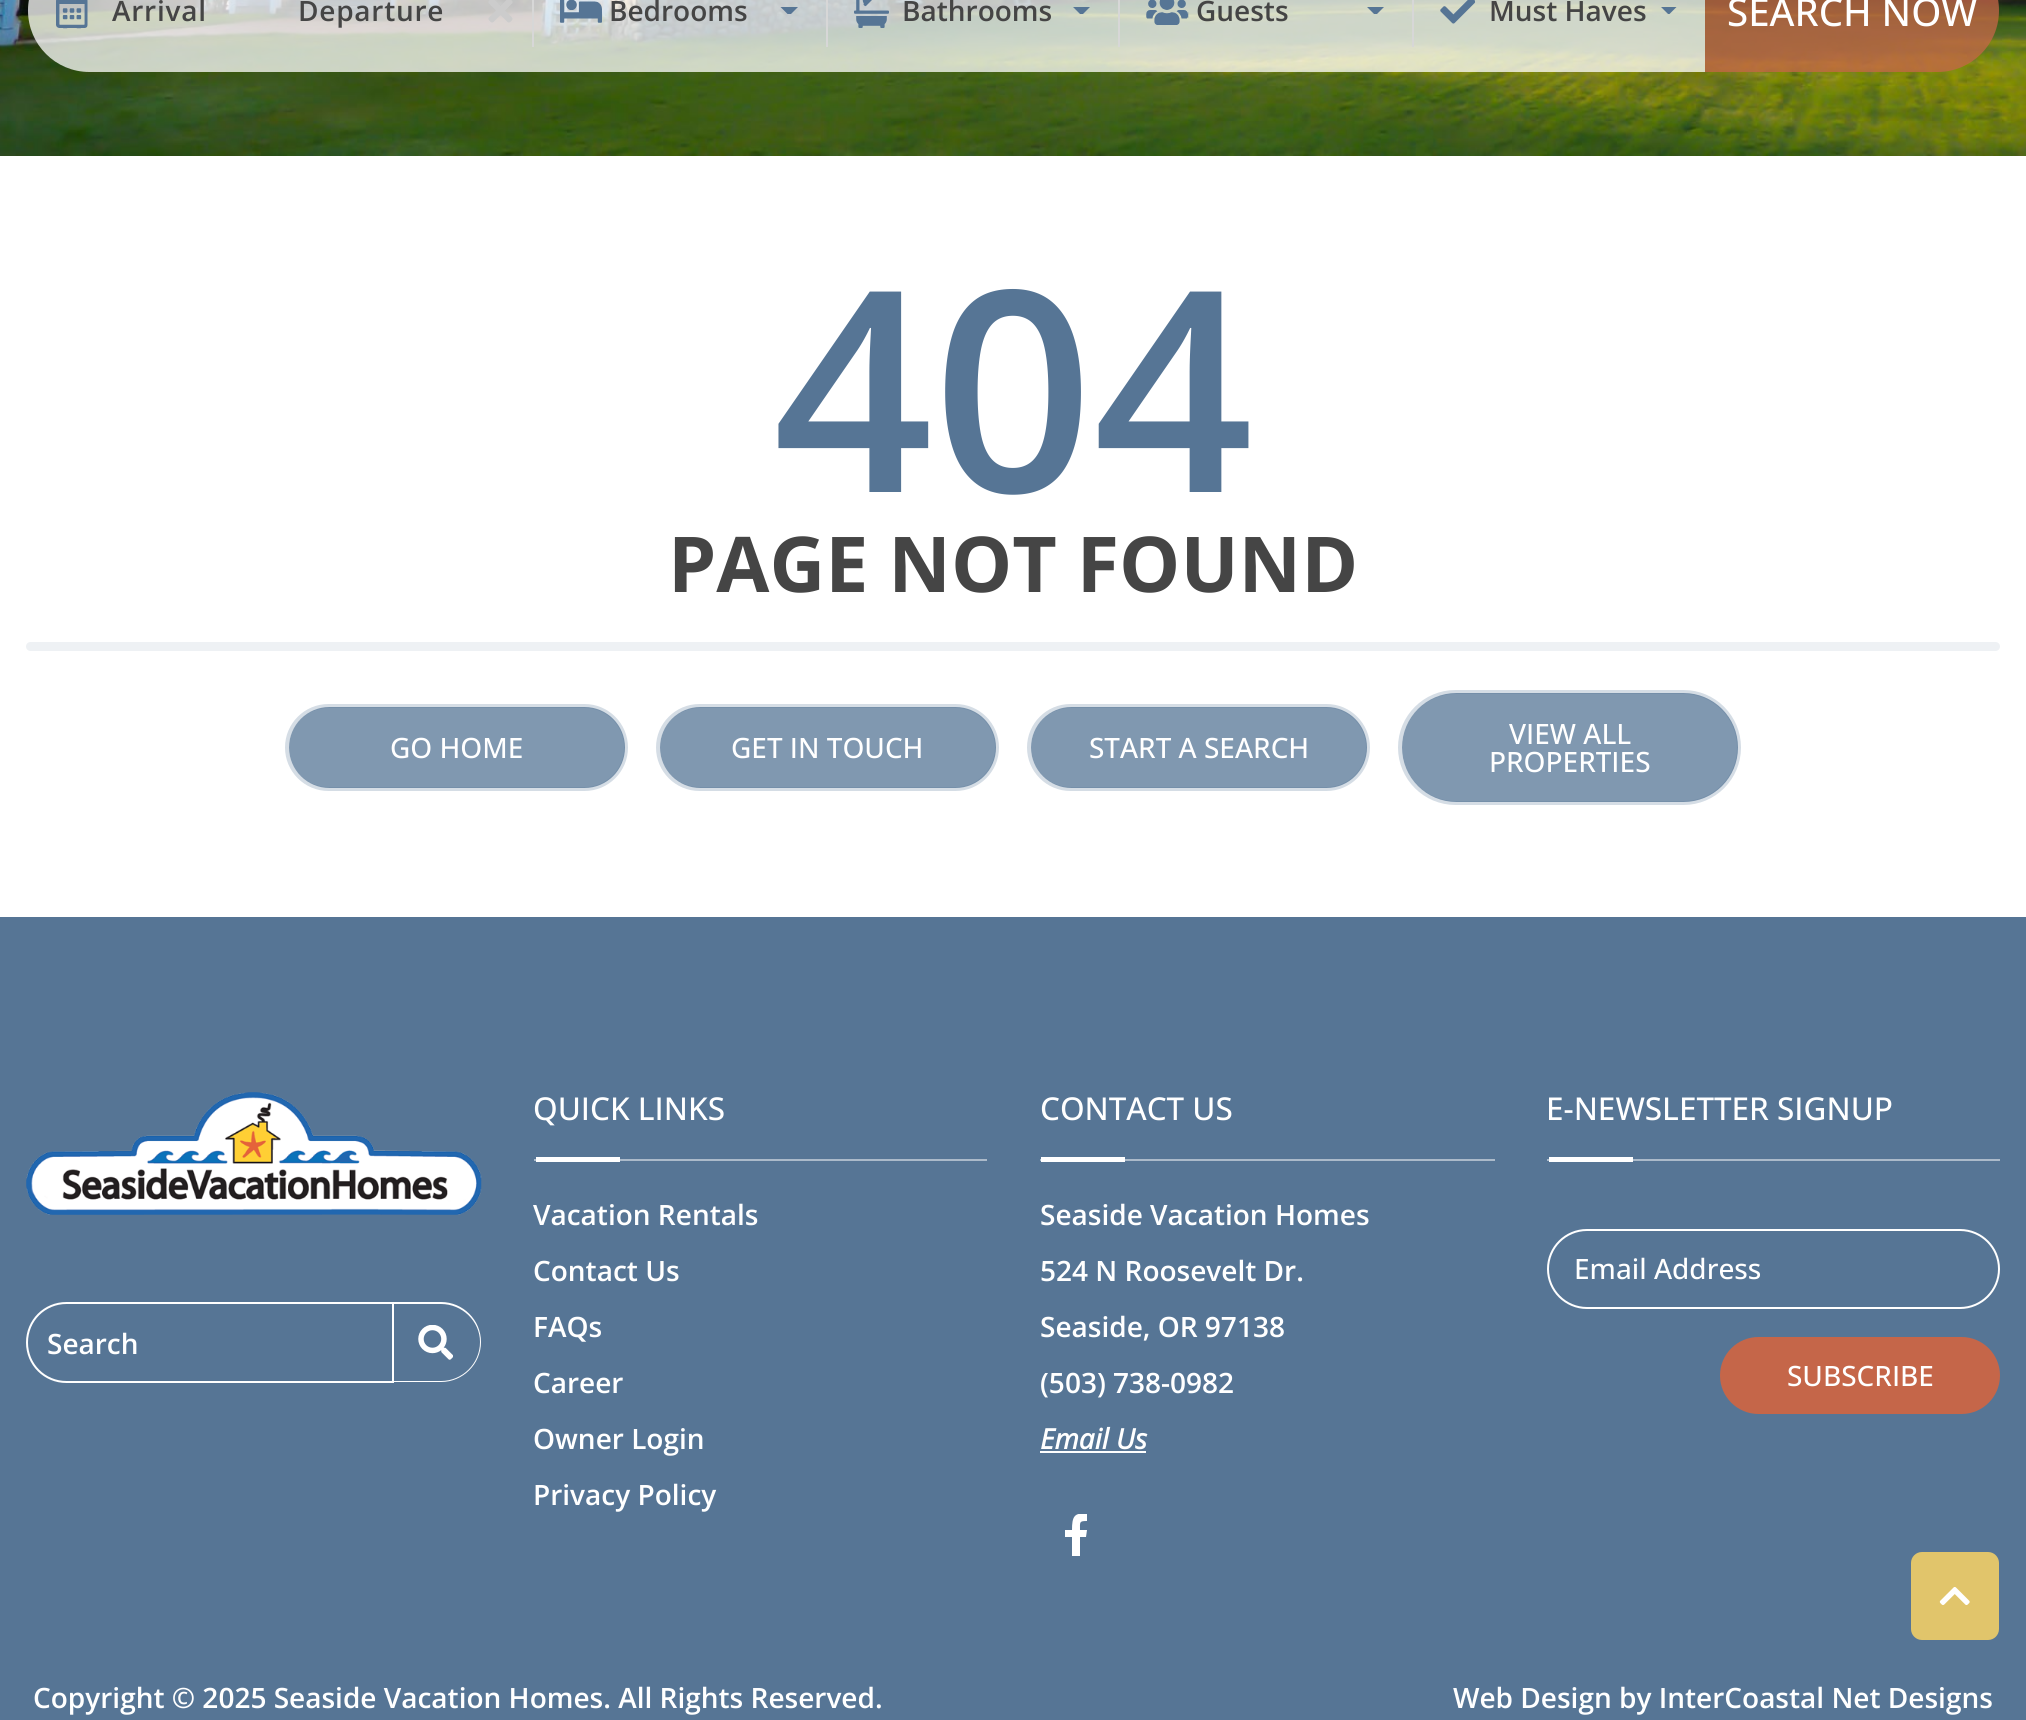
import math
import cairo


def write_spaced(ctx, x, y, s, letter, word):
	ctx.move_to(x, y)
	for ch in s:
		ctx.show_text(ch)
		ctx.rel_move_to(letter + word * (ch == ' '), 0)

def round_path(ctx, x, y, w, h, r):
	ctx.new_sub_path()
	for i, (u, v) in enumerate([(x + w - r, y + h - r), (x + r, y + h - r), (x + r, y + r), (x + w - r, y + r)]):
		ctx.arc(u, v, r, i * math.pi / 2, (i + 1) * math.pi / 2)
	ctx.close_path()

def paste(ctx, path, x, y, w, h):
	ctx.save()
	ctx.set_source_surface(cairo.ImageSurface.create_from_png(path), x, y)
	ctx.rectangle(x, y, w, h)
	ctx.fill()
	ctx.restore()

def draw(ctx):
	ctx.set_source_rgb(1, 1, 1)
	ctx.paint()
	paste(ctx, 'media/1.png', 0, 0, 2026, 156)
	ctx.set_source_rgba(1, 1, 1, 0.75)
	ctx.new_path()
	ctx.move_to(89.5, -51)
	ctx.line_to(532, -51)
	ctx.line_to(532, 72)
	ctx.line_to(89.5, 72)
	ctx.curve_to(55.5, 72, 28, 44.5, 28, 10.5)
	ctx.curve_to(28, -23.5, 55.5, -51, 89.5, -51)
	ctx.close_path()
	ctx.fill()
	paste(ctx, 'media/2.png', 56, 0, 32, 29)
	ctx.select_font_face('Open Sans SemiBold')
	ctx.set_font_size(28)
	ctx.set_source_rgb(0.271, 0.271, 0.271)
	write_spaced(ctx, 112, 21, 'Arrival', 0.75, 0)
	write_spaced(ctx, 298, 21, 'Departure', 0.75, 0)
	paste(ctx, 'media/3.png', 488, 0, 25, 23)
	ctx.set_source_rgba(1, 1, 1, 0.75)
	ctx.rectangle(532, 0, 294, 72)
	ctx.fill()
	ctx.set_source_rgb(0.843, 0.843, 0.843)
	ctx.rectangle(532, 0, 2, 47)
	ctx.fill()
	paste(ctx, 'media/4.png', 560, 0, 42, 23)
	ctx.set_source_rgb(0.271, 0.271, 0.271)
	ctx.move_to(609, 21)
	ctx.show_text('Bedrooms')
	ctx.set_source_rgb(0.337, 0.459, 0.584)
	ctx.new_path()
	ctx.move_to(780.5, 7)
	ctx.line_to(798, 7)
	ctx.line_to(791, 14)
	ctx.line_to(787.5, 14)
	ctx.close_path()
	ctx.fill()
	ctx.set_source_rgba(1, 1, 1, 0.75)
	ctx.rectangle(826, 0, 292, 72)
	ctx.fill()
	ctx.set_source_rgb(0.843, 0.843, 0.843)
	ctx.rectangle(826, 0, 2, 47)
	ctx.fill()
	paste(ctx, 'media/5.png', 854, 0, 35, 28)
	ctx.set_source_rgb(0.271, 0.271, 0.271)
	ctx.move_to(902, 21)
	ctx.show_text('Bathrooms')
	ctx.set_source_rgb(0.337, 0.459, 0.584)
	ctx.new_path()
	ctx.move_to(1073, 7)
	ctx.line_to(1090, 7)
	ctx.line_to(1083, 14)
	ctx.line_to(1080, 14)
	ctx.close_path()
	ctx.fill()
	ctx.set_source_rgba(1, 1, 1, 0.75)
	ctx.rectangle(1118, 0, 294, 72)
	ctx.fill()
	ctx.set_source_rgb(0.843, 0.843, 0.843)
	ctx.rectangle(1118, 0, 2, 47)
	ctx.fill()
	paste(ctx, 'media/6.png', 1146, 0, 43, 25)
	ctx.set_source_rgb(0.271, 0.271, 0.271)
	ctx.move_to(1196, 21)
	ctx.show_text('Guests')
	ctx.set_source_rgb(0.337, 0.459, 0.584)
	ctx.new_path()
	ctx.move_to(1367, 7)
	ctx.line_to(1384, 7)
	ctx.line_to(1377, 14)
	ctx.line_to(1374, 14)
	ctx.close_path()
	ctx.fill()
	ctx.set_source_rgba(1, 1, 1, 0.75)
	ctx.rectangle(1412, 0, 293, 72)
	ctx.fill()
	ctx.set_source_rgb(0.843, 0.843, 0.843)
	ctx.rectangle(1412, 0, 2, 47)
	ctx.fill()
	paste(ctx, 'media/7.png', 1440, 0, 35, 24)
	ctx.set_source_rgb(0.271, 0.271, 0.271)
	ctx.move_to(1489, 21)
	ctx.show_text('Must Haves')
	ctx.set_source_rgb(0.337, 0.459, 0.584)
	ctx.new_path()
	ctx.move_to(1661, 7)
	ctx.line_to(1676.5, 7)
	ctx.line_to(1669.5, 14)
	ctx.line_to(1668, 14)
	ctx.close_path()
	ctx.fill()
	ctx.set_source_rgba(0.773, 0.4, 0.286, 0.75)
	ctx.new_path()
	ctx.move_to(1705, -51)
	ctx.line_to(1937.5, -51)
	ctx.curve_to(1971.5, -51, 1999, -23.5, 1999, 10.5)
	ctx.curve_to(1999, 44.5, 1971.5, 72, 1937.5, 72)
	ctx.line_to(1705, 72)
	ctx.close_path()
	ctx.fill()
	ctx.select_font_face('Open Sans Medium')
	ctx.set_font_size(38.5)
	ctx.set_source_rgb(1, 1, 1)
	ctx.move_to(1727, 26)
	ctx.show_text('SEARCH NOW')
	ctx.select_font_face('Open Sans SemiBold')
	ctx.set_font_size(280)
	ctx.set_source_rgb(0.337, 0.459, 0.584)
	ctx.move_to(773, 492)
	ctx.show_text('404')
	ctx.select_font_face('Open Sans', cairo.FONT_SLANT_NORMAL, cairo.FONT_WEIGHT_BOLD)
	ctx.set_font_size(77)
	ctx.set_source_rgb(0.271, 0.271, 0.271)
	ctx.move_to(668, 592)
	ctx.show_text('PAGE NOT FOUND')
	ctx.set_source_rgb(0.933, 0.945, 0.957)
	round_path(ctx, 26, 642, 1974, 9, 4.5)
	ctx.fill()
	round_path(ctx, 287, 706, 339, 83, 41.5)
	ctx.set_source_rgb(0.835, 0.867, 0.898)
	ctx.set_line_width(4)
	ctx.stroke()
	ctx.set_source_rgba(0.337, 0.459, 0.584, 0.75)
	round_path(ctx, 289, 707, 336, 81, 40.5)
	ctx.fill()
	ctx.select_font_face('Open Sans Medium')
	ctx.set_font_size(28)
	ctx.set_source_rgb(1, 1, 1)
	ctx.move_to(390, 758)
	ctx.show_text('GO HOME')
	round_path(ctx, 658, 706, 339, 83, 41.5)
	ctx.set_source_rgb(0.835, 0.867, 0.898)
	ctx.stroke()
	ctx.set_source_rgba(0.337, 0.459, 0.584, 0.75)
	round_path(ctx, 660, 707, 336, 81, 40.5)
	ctx.fill()
	ctx.set_source_rgb(1, 1, 1)
	ctx.move_to(731, 758)
	ctx.show_text('GET IN TOUCH')
	round_path(ctx, 1029, 706, 339, 83, 41.5)
	ctx.set_source_rgb(0.835, 0.867, 0.898)
	ctx.stroke()
	ctx.set_source_rgba(0.337, 0.459, 0.584, 0.75)
	round_path(ctx, 1031, 707, 336, 81, 40.5)
	ctx.fill()
	ctx.set_source_rgb(1, 1, 1)
	ctx.move_to(1089, 758)
	ctx.show_text('START A SEARCH')
	round_path(ctx, 1400, 692, 339, 111, 55.5)
	ctx.set_source_rgb(0.835, 0.867, 0.898)
	ctx.stroke()
	ctx.set_source_rgba(0.337, 0.459, 0.584, 0.75)
	round_path(ctx, 1402, 693, 336, 109, 54.5)
	ctx.fill()
	ctx.set_source_rgb(1, 1, 1)
	ctx.move_to(1509, 744)
	ctx.show_text('VIEW ALL')
	ctx.move_to(1489, 772)
	ctx.show_text('PROPERTIES')
	ctx.set_source_rgb(0.337, 0.459, 0.584)
	ctx.rectangle(0, 917, 2026, 803)
	ctx.fill()
	paste(ctx, 'media/8.png', 26, 1092, 456, 123)
	ctx.new_path()
	ctx.move_to(66.5, 1303)
	ctx.line_to(393, 1303)
	ctx.line_to(393, 1382)
	ctx.line_to(66.5, 1382)
	ctx.curve_to(44.5, 1382, 27, 1364.5, 27, 1342.5)
	ctx.curve_to(27, 1320.5, 44.5, 1303, 66.5, 1303)
	ctx.close_path()
	ctx.set_source_rgb(1, 1, 1)
	ctx.set_line_width(2)
	ctx.stroke()
	ctx.set_fill_rule(cairo.FILL_RULE_EVEN_ODD)
	ctx.new_path()
	ctx.move_to(394, 1302)
	ctx.line_to(441, 1302)
	ctx.curve_to(463, 1302, 481, 1320, 481, 1342)
	ctx.curve_to(481, 1364, 463, 1382, 441, 1382)
	ctx.line_to(394, 1382)
	ctx.close_path()
	ctx.move_to(394, 1304)
	ctx.line_to(441, 1304)
	ctx.curve_to(462, 1304, 480, 1321, 480, 1342)
	ctx.curve_to(480, 1364, 462, 1381, 441, 1381)
	ctx.line_to(394, 1381)
	ctx.close_path()
	ctx.fill()
	paste(ctx, 'media/9.png', 418, 1325, 35, 35)
	ctx.select_font_face('Open Sans SemiBold')
	ctx.move_to(47, 1354)
	ctx.show_text('Search')
	ctx.set_source_rgb(0.671, 0.729, 0.792)
	ctx.rectangle(534, 1159, 453, 2)
	ctx.fill()
	ctx.select_font_face('Open Sans Medium')
	ctx.set_font_size(31.5)
	ctx.set_source_rgb(1, 1, 1)
	ctx.move_to(533, 1120)
	ctx.show_text('QUICK LINKS')
	ctx.rectangle(536, 1157, 84, 5)
	ctx.fill()
	ctx.select_font_face('Open Sans SemiBold')
	ctx.set_font_size(28)
	for x, y, s in [
		(533, 1225, 'Vacation Rentals'),
		(533, 1281, 'Contact Us'),
		(533, 1337, 'FAQs'),
		(533, 1393, 'Career'),
		(533, 1449, 'Owner Login'),
		(533, 1505, 'Privacy Policy'),
	]:
		ctx.move_to(x, y)
		ctx.show_text(s)
	ctx.set_source_rgb(0.671, 0.729, 0.792)
	ctx.rectangle(1040, 1159, 455, 2)
	ctx.fill()
	ctx.select_font_face('Open Sans Medium')
	ctx.set_font_size(31.5)
	ctx.set_source_rgb(1, 1, 1)
	ctx.move_to(1040, 1120)
	ctx.show_text('CONTACT US')
	ctx.rectangle(1041, 1157, 84, 5)
	ctx.fill()
	ctx.select_font_face('Open Sans SemiBold')
	ctx.set_font_size(28)
	for x, y, s in [
		(1040, 1225, 'Seaside Vacation Homes'),
		(1040, 1281, '524 N Roosevelt Dr.'),
		(1040, 1337, 'Seaside, OR 97138'),
		(1040, 1393, '(503) 738-0982'),
	]:
		ctx.move_to(x, y)
		ctx.show_text(s)
	ctx.select_font_face('Open Sans', cairo.FONT_SLANT_ITALIC, cairo.FONT_WEIGHT_BOLD)
	ctx.move_to(1040, 1449)
	ctx.show_text('Email Us')
	ctx.rectangle(1040, 1451, 106, 2)
	ctx.fill()
	ctx.save()
	ctx.set_fill_rule(cairo.FILL_RULE_WINDING)
	ctx.rectangle(1061, 1514, 42, 42)
	ctx.clip()
	ctx.new_path()
	ctx.move_to(1086, 1537)
	ctx.line_to(1087, 1530)
	ctx.line_to(1080, 1530)
	ctx.curve_to(1080, 1522, 1079, 1521, 1087, 1521)
	ctx.line_to(1087, 1514)
	ctx.curve_to(1074, 1512, 1072, 1517, 1072, 1530)
	ctx.line_to(1065, 1530)
	ctx.line_to(1065, 1537)
	ctx.line_to(1072, 1537)
	ctx.line_to(1072, 1556)
	ctx.line_to(1080, 1556)
	ctx.line_to(1080, 1537)
	ctx.close_path()
	ctx.fill()
	ctx.restore()
	ctx.set_source_rgb(0.671, 0.729, 0.792)
	ctx.rectangle(1547, 1159, 453, 2)
	ctx.fill()
	ctx.select_font_face('Open Sans Medium')
	ctx.set_font_size(31.5)
	ctx.set_source_rgb(1, 1, 1)
	ctx.move_to(1546, 1120)
	ctx.show_text('E-NEWSLETTER SIGNUP')
	ctx.rectangle(1549, 1157, 84, 5)
	ctx.fill()
	round_path(ctx, 1548, 1230, 451, 78, 39)
	ctx.stroke()
	ctx.set_font_size(28)
	ctx.move_to(1574, 1279)
	ctx.show_text('Email Address')
	ctx.set_source_rgb(0.773, 0.4, 0.286)
	round_path(ctx, 1720, 1337, 280, 77, 38.5)
	ctx.fill()
	ctx.set_source_rgb(1, 1, 1)
	ctx.move_to(1787, 1386)
	ctx.show_text('SUBSCRIBE')
	ctx.select_font_face('Open Sans SemiBold')
	ctx.move_to(33, 1708)
	ctx.show_text('Copyright © 2025 Seaside Vacation Homes. All Rights Reserved.')
	ctx.move_to(1453, 1708)
	ctx.show_text('Web Design by InterCoastal Net Designs')
	ctx.set_source_rgb(0.882, 0.773, 0.42)
	round_path(ctx, 1911, 1552, 88, 88, 11)
	ctx.fill()
	paste(ctx, 'media/10.png', 1939, 1587, 31, 18)


surface = cairo.ImageSurface(cairo.FORMAT_RGB24, 2026, 1720)
ctx = cairo.Context(surface)
options = cairo.FontOptions()
options.set_hint_metrics(cairo.HINT_METRICS_OFF)
options.set_hint_style(cairo.HINT_STYLE_NONE)
ctx.set_font_options(options)
ctx.set_miter_limit(4)
draw(ctx)
surface.write_to_png('image.png')
